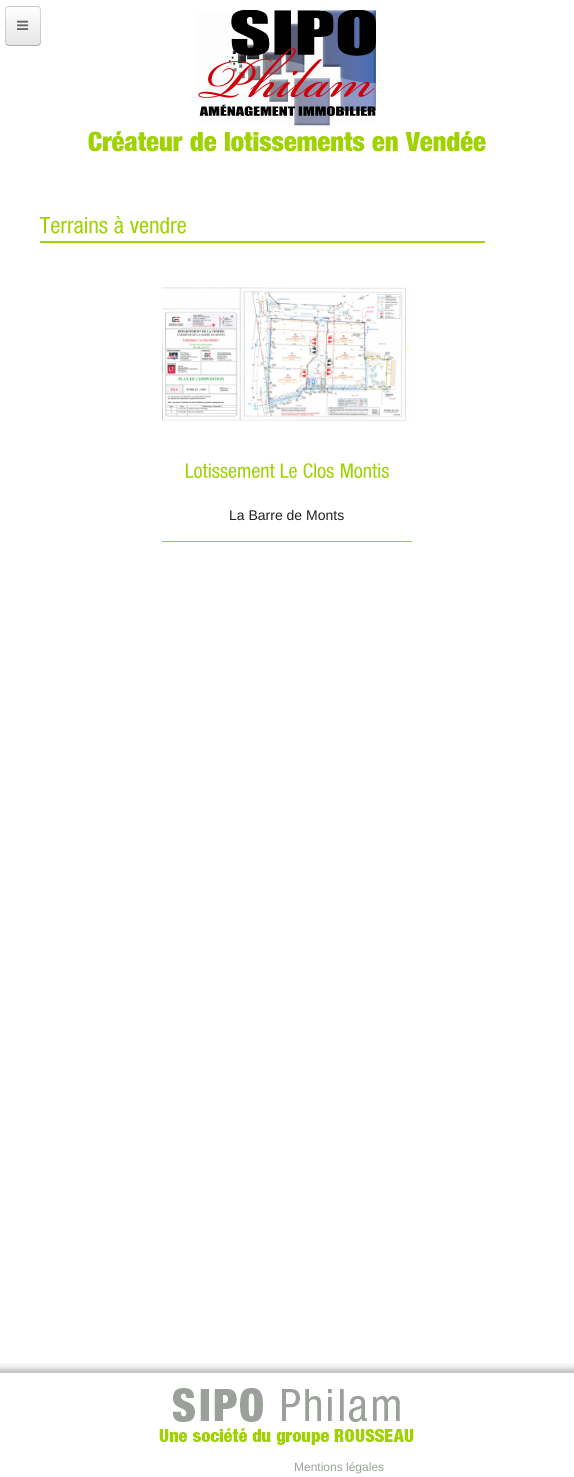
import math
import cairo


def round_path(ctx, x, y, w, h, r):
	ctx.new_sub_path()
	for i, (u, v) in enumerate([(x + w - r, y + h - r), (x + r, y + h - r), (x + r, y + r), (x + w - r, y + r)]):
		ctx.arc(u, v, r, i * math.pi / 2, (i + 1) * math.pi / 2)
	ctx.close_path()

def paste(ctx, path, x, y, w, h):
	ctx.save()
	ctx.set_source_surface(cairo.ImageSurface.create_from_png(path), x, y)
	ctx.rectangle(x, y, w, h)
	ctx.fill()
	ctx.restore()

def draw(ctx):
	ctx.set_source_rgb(1, 1, 1)
	ctx.paint()
	ctx.set_source_rgb(0.91, 0.91, 0.91)
	round_path(ctx, 5, 6, 36, 40, 4)
	ctx.fill()
	ctx.save()
	round_path(ctx, 5, 6, 36, 40, 4)
	ctx.clip()
	gradient = cairo.LinearGradient(23, 7, 23, 45)
	gradient.add_color_stop_rgba(0, 1, 1, 1, 1)
	gradient.add_color_stop_rgba(1, 0.902, 0.902, 0.902, 1)
	ctx.set_source(gradient)
	ctx.rectangle(5, 7, 36, 38)
	ctx.fill()
	ctx.restore()
	ctx.new_path()
	ctx.move_to(39.5, 44.5)
	ctx.curve_to(39, 45, 38, 45.5, 37, 45.5)
	ctx.line_to(9, 45.5)
	ctx.curve_to(8, 45.5, 7, 45, 6.5, 44.5)
	ctx.set_source_rgba(0, 0, 0, 0.25)
	ctx.set_line_width(1)
	ctx.stroke()
	ctx.new_path()
	ctx.move_to(6.5, 44.5)
	ctx.curve_to(4.5, 42.5, 5.5, 38.5, 5.5, 36.5)
	ctx.line_to(5.5, 15.5)
	ctx.curve_to(5.5, 6.5, 5, 6.5, 13.5, 6.5)
	ctx.line_to(32.5, 6.5)
	ctx.curve_to(41, 6.5, 40.5, 6.5, 40.5, 15.5)
	ctx.line_to(40.5, 36.5)
	ctx.curve_to(40.5, 38.5, 41.5, 42.5, 39.5, 44.5)
	ctx.set_source_rgba(0, 0, 0, 0.15)
	ctx.stroke()
	paste(ctx, 'media/1.png', 17, 20, 12, 10)
	paste(ctx, 'media/2.png', 198, 10, 178, 116)
	paste(ctx, 'media/3.png', 88, 131, 95, 21)
	paste(ctx, 'media/4.png', 190, 132, 27, 20)
	paste(ctx, 'media/5.png', 225, 131, 140, 21)
	paste(ctx, 'media/6.png', 372, 136, 26, 16)
	paste(ctx, 'media/7.png', 405, 131, 81, 21)
	ctx.set_source_rgb(0.62, 0.824, 0)
	ctx.rectangle(40, 241, 445, 2)
	ctx.fill()
	paste(ctx, 'media/8.png', 40, 217, 68, 17)
	paste(ctx, 'media/9.png', 114, 216, 10, 18)
	paste(ctx, 'media/10.png', 130, 217, 56, 17)
	ctx.rectangle(162, 541, 250, 1)
	ctx.fill()
	paste(ctx, 'media/11.png', 162, 287, 249, 135)
	paste(ctx, 'media/12.png', 185, 463, 90, 15)
	paste(ctx, 'media/13.png', 280, 463, 17, 15)
	paste(ctx, 'media/14.png', 303, 463, 31, 15)
	paste(ctx, 'media/15.png', 340, 463, 49, 15)
	ctx.select_font_face('Liberation Sans')
	ctx.set_font_size(14)
	ctx.set_source_rgb(0.137, 0.122, 0.125)
	ctx.move_to(229, 520)
	ctx.show_text('La Barre de Monts')
	paste(ctx, 'media/16.png', 0, 1363, 574, 10)
	paste(ctx, 'media/17.png', 159, 1388, 255, 57)
	ctx.set_font_size(12)
	ctx.set_source_rgb(0.608, 0.635, 0.604)
	ctx.move_to(294, 1471)
	ctx.show_text('Mentions légales')


surface = cairo.ImageSurface(cairo.FORMAT_RGB24, 574, 1477)
ctx = cairo.Context(surface)
options = cairo.FontOptions()
options.set_hint_metrics(cairo.HINT_METRICS_OFF)
options.set_hint_style(cairo.HINT_STYLE_NONE)
ctx.set_font_options(options)
ctx.set_miter_limit(4)
draw(ctx)
surface.write_to_png('image.png')
